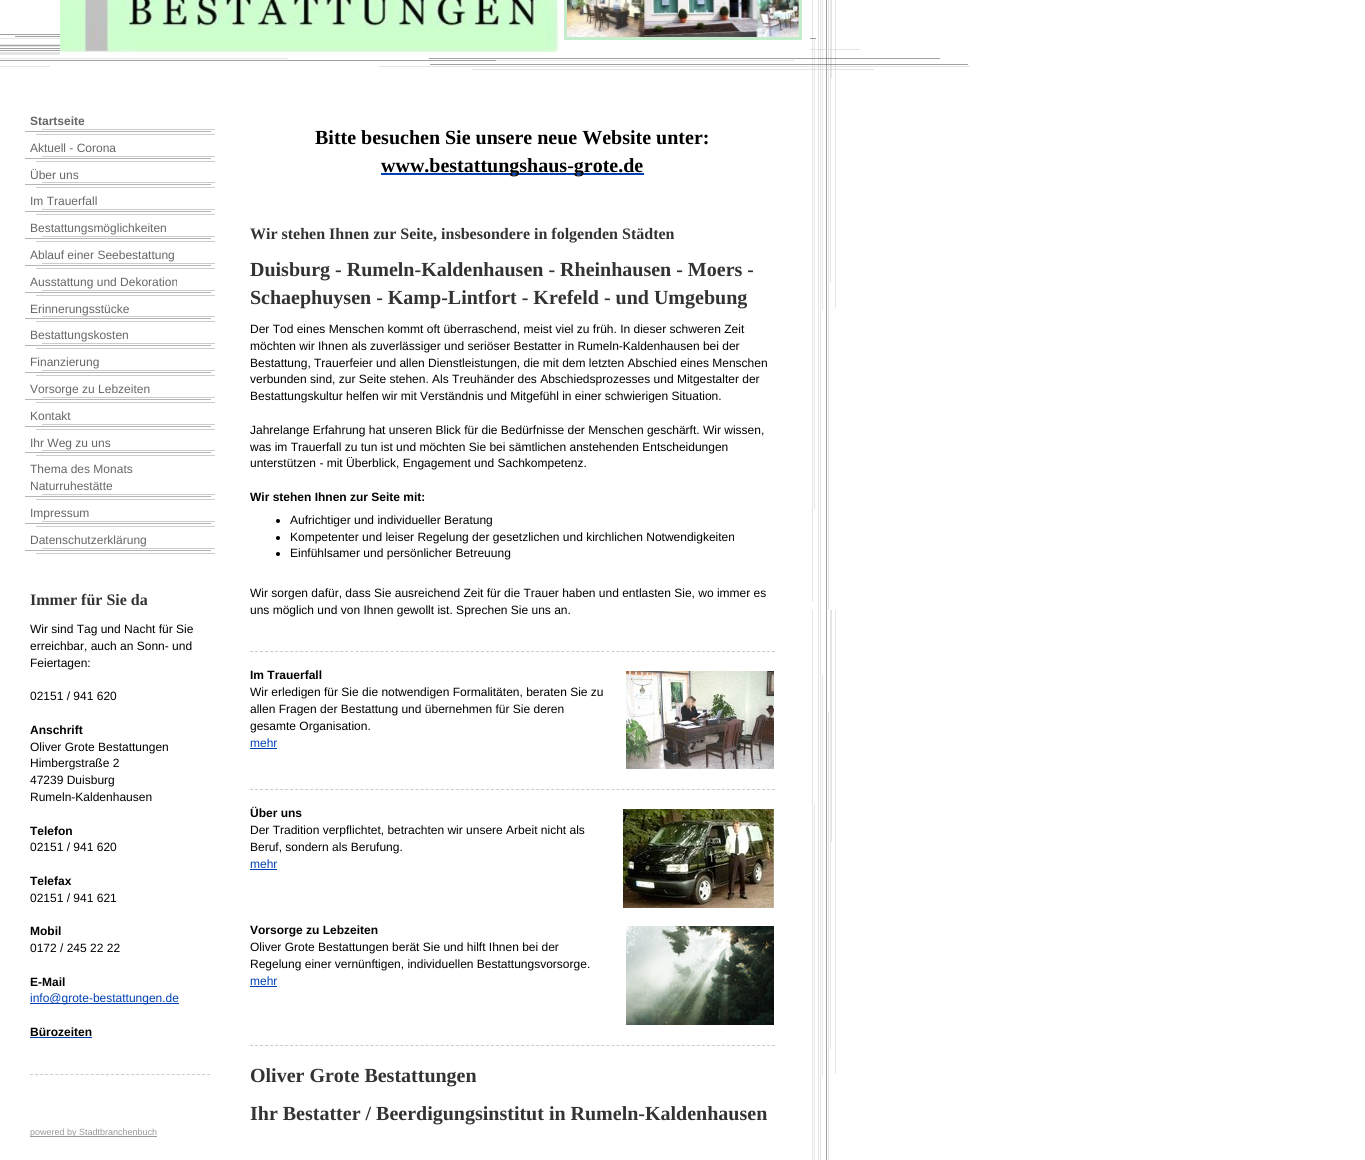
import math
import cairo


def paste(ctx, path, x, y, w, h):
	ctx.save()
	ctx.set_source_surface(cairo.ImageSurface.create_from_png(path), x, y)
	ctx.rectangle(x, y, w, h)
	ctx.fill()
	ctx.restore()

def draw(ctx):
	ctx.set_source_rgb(1, 1, 1)
	ctx.paint()
	paste(ctx, 'media/1.png', 812, 0, 24, 1160)
	paste(ctx, 'media/2.png', 0, 34, 970, 44)
	paste(ctx, 'media/4.png', 60, 0, 750, 52)
	ctx.rectangle(565.5, -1.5, 235, 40)
	ctx.set_source_rgb(0.761, 0.922, 0.792)
	ctx.set_line_width(3)
	ctx.stroke()
	paste(ctx, 'media/3.png', 567, 0, 232, 37)
	paste(ctx, 'media/5.png', 25, 129, 190, 6)
	ctx.select_font_face('Liberation Sans', cairo.FONT_SLANT_NORMAL, cairo.FONT_WEIGHT_BOLD)
	ctx.set_font_size(12)
	ctx.set_source_rgb(0.4, 0.4, 0.4)
	ctx.move_to(30, 125)
	ctx.show_text('Startseite')
	paste(ctx, 'media/5.png', 25, 156, 190, 6)
	ctx.select_font_face('Liberation Sans')
	ctx.move_to(30, 152)
	ctx.show_text('Aktuell - Corona')
	paste(ctx, 'media/5.png', 25, 182, 190, 6)
	ctx.move_to(30, 179)
	ctx.show_text('Über uns')
	paste(ctx, 'media/5.png', 25, 209, 190, 6)
	ctx.move_to(30, 205)
	ctx.show_text('Im Trauerfall')
	paste(ctx, 'media/5.png', 25, 236, 190, 6)
	ctx.move_to(30, 232)
	ctx.show_text('Bestattungsmöglichkeiten')
	paste(ctx, 'media/5.png', 25, 263, 190, 6)
	ctx.move_to(30, 259)
	ctx.show_text('Ablauf einer Seebestattung')
	paste(ctx, 'media/5.png', 25, 290, 190, 6)
	ctx.move_to(30, 286)
	ctx.show_text('Ausstattung und Dekoration')
	paste(ctx, 'media/5.png', 25, 316, 190, 6)
	ctx.move_to(30, 313)
	ctx.show_text('Erinnerungsstücke')
	paste(ctx, 'media/5.png', 25, 343, 190, 6)
	ctx.move_to(30, 339)
	ctx.show_text('Bestattungskosten')
	paste(ctx, 'media/5.png', 25, 370, 190, 6)
	ctx.move_to(30, 366)
	ctx.show_text('Finanzierung')
	paste(ctx, 'media/5.png', 25, 397, 190, 6)
	ctx.move_to(30, 393)
	ctx.show_text('Vorsorge zu Lebzeiten')
	paste(ctx, 'media/5.png', 25, 424, 190, 6)
	ctx.move_to(30, 420)
	ctx.show_text('Kontakt')
	paste(ctx, 'media/5.png', 25, 450, 190, 6)
	ctx.move_to(30, 447)
	ctx.show_text('Ihr Weg zu uns')
	paste(ctx, 'media/5.png', 25, 494, 190, 6)
	ctx.move_to(30, 473)
	ctx.show_text('Thema des Monats')
	ctx.move_to(30, 490)
	ctx.show_text('Naturruhestätte')
	paste(ctx, 'media/5.png', 25, 521, 190, 6)
	ctx.move_to(30, 517)
	ctx.show_text('Impressum')
	paste(ctx, 'media/5.png', 25, 548, 190, 6)
	ctx.move_to(30, 544)
	ctx.show_text('Datenschutzerklärung')
	ctx.select_font_face('Liberation Serif', cairo.FONT_SLANT_NORMAL, cairo.FONT_WEIGHT_BOLD)
	ctx.set_font_size(16)
	ctx.set_source_rgb(0.2, 0.2, 0.2)
	ctx.move_to(30, 605)
	ctx.show_text('Immer für Sie da')
	ctx.select_font_face('Liberation Sans')
	ctx.set_font_size(12)
	ctx.set_source_rgb(0, 0, 0)
	for x, y, s in [
		(30, 633, 'Wir sind Tag und Nacht für Sie'),
		(30, 650, 'erreichbar, auch an Sonn- und'),
		(30, 667, 'Feiertagen:'),
		(30, 700, '02151 / 941 620'),
	]:
		ctx.move_to(x, y)
		ctx.show_text(s)
	ctx.select_font_face('Liberation Sans', cairo.FONT_SLANT_NORMAL, cairo.FONT_WEIGHT_BOLD)
	ctx.move_to(30, 734)
	ctx.show_text('Anschrift')
	ctx.select_font_face('Liberation Sans')
	for x, y, s in [
		(30, 751, 'Oliver Grote Bestattungen'),
		(30, 767, 'Himbergstraße 2'),
		(30, 784, '47239 Duisburg'),
		(30, 801, 'Rumeln-Kaldenhausen'),
	]:
		ctx.move_to(x, y)
		ctx.show_text(s)
	ctx.select_font_face('Liberation Sans', cairo.FONT_SLANT_NORMAL, cairo.FONT_WEIGHT_BOLD)
	ctx.move_to(30, 835)
	ctx.show_text('Telefon')
	ctx.select_font_face('Liberation Sans')
	ctx.move_to(30, 851)
	ctx.show_text('02151 / 941 620')
	ctx.select_font_face('Liberation Sans', cairo.FONT_SLANT_NORMAL, cairo.FONT_WEIGHT_BOLD)
	ctx.move_to(30, 885)
	ctx.show_text('Telefax')
	ctx.select_font_face('Liberation Sans')
	ctx.move_to(30, 902)
	ctx.show_text('02151 / 941 621')
	ctx.select_font_face('Liberation Sans', cairo.FONT_SLANT_NORMAL, cairo.FONT_WEIGHT_BOLD)
	ctx.move_to(30, 935)
	ctx.show_text('Mobil')
	ctx.select_font_face('Liberation Sans')
	ctx.move_to(30, 952)
	ctx.show_text('0172 / 245 22 22')
	ctx.select_font_face('Liberation Sans', cairo.FONT_SLANT_NORMAL, cairo.FONT_WEIGHT_BOLD)
	ctx.move_to(30, 986)
	ctx.show_text('E-Mail')
	ctx.set_source_rgb(0, 0.251, 0.714)
	ctx.rectangle(30, 1003, 149, 1)
	ctx.fill()
	ctx.select_font_face('Liberation Sans')
	ctx.move_to(30, 1002)
	ctx.show_text('info@grote-bestattungen.de')
	ctx.select_font_face('Liberation Sans', cairo.FONT_SLANT_NORMAL, cairo.FONT_WEIGHT_BOLD)
	ctx.set_source_rgb(0, 0, 0)
	ctx.move_to(30, 1036)
	ctx.show_text('Bürozeiten')
	ctx.set_source_rgb(0, 0.251, 0.714)
	ctx.rectangle(30, 1037, 62, 1)
	ctx.fill()
	ctx.new_path()
	ctx.move_to(30, 1074.5)
	ctx.line_to(210, 1074.5)
	ctx.set_source_rgb(0.8, 0.8, 0.8)
	ctx.set_line_width(1)
	ctx.set_dash([3, 2.06])
	ctx.stroke()
	ctx.set_source_rgb(0.6, 0.6, 0.6)
	ctx.rectangle(30, 1136, 127, 1)
	ctx.fill()
	ctx.select_font_face('Liberation Sans')
	ctx.set_font_size(9)
	ctx.move_to(30, 1135)
	ctx.show_text('powered by Stadtbranchenbuch')
	ctx.select_font_face('Liberation Serif', cairo.FONT_SLANT_NORMAL, cairo.FONT_WEIGHT_BOLD)
	ctx.set_font_size(20)
	ctx.set_source_rgb(0, 0, 0)
	ctx.move_to(315, 144)
	ctx.show_text('Bitte besuchen Sie unsere neue Website unter:')
	ctx.set_source_rgb(0, 0.251, 0.714)
	ctx.rectangle(381, 173, 263, 2)
	ctx.fill()
	ctx.set_source_rgb(0, 0, 0)
	ctx.move_to(381, 172)
	ctx.show_text('www.bestattungshaus-grote.de')
	ctx.set_font_size(16)
	ctx.set_source_rgb(0.2, 0.2, 0.2)
	ctx.move_to(250, 239)
	ctx.show_text('Wir stehen Ihnen zur Seite, insbesondere in folgenden Städten')
	ctx.set_font_size(20)
	ctx.move_to(250, 276)
	ctx.show_text('Duisburg - Rumeln-Kaldenhausen - Rheinhausen - Moers -')
	ctx.move_to(250, 304)
	ctx.show_text('Schaephuysen - Kamp-Lintfort - Krefeld - und Umgebung')
	ctx.select_font_face('Liberation Sans')
	ctx.set_font_size(12)
	ctx.set_source_rgb(0, 0, 0)
	for x, y, s in [
		(250, 333, 'Der Tod eines Menschen kommt oft überraschend, meist viel zu früh. In dieser schweren Zeit'),
		(250, 350, 'möchten wir Ihnen als zuverlässiger und seriöser Bestatter in Rumeln-Kaldenhausen bei der'),
		(250, 367, 'Bestattung, Trauerfeier und allen Dienstleistungen, die mit dem letzten Abschied eines Menschen'),
		(250, 383, 'verbunden sind, zur Seite stehen. Als Treuhänder des Abschiedsprozesses und Mitgestalter der'),
		(250, 400, 'Bestattungskultur helfen wir mit Verständnis und Mitgefühl in einer schwierigen Situation.'),
		(250, 434, 'Jahrelange Erfahrung hat unseren Blick für die Bedürfnisse der Menschen geschärft. Wir wissen,'),
		(250, 451, 'was im Trauerfall zu tun ist und möchten Sie bei sämtlichen anstehenden Entscheidungen'),
		(250, 467, 'unterstützen - mit Überblick, Engagement und Sachkompetenz.'),
	]:
		ctx.move_to(x, y)
		ctx.show_text(s)
	ctx.select_font_face('Liberation Sans', cairo.FONT_SLANT_NORMAL, cairo.FONT_WEIGHT_BOLD)
	ctx.move_to(250, 501)
	ctx.show_text('Wir stehen Ihnen zur Seite mit:')
	ctx.new_path()
	ctx.arc(278, 521, 2, 0, 2 * math.pi)
	ctx.fill()
	ctx.select_font_face('Liberation Sans')
	ctx.move_to(290, 524)
	ctx.show_text('Aufrichtiger und individueller Beratung')
	ctx.new_path()
	ctx.arc(278, 538, 2, 0, 2 * math.pi)
	ctx.fill()
	ctx.move_to(290, 541)
	ctx.show_text('Kompetenter und leiser Regelung der gesetzlichen und kirchlichen Notwendigkeiten')
	ctx.new_path()
	ctx.arc(278, 554, 2, 0, 2 * math.pi)
	ctx.fill()
	for x, y, s in [
		(290, 557, 'Einfühlsamer und persönlicher Betreuung'),
		(250, 597, 'Wir sorgen dafür, dass Sie ausreichend Zeit für die Trauer haben und entlasten Sie, wo immer es'),
		(250, 614, 'uns möglich und von Ihnen gewollt ist. Sprechen Sie uns an.'),
	]:
		ctx.move_to(x, y)
		ctx.show_text(s)
	ctx.new_path()
	ctx.move_to(250, 651.5)
	ctx.line_to(775, 651.5)
	ctx.set_source_rgb(0.8, 0.8, 0.8)
	ctx.set_dash([3, 2.02])
	ctx.stroke()
	ctx.select_font_face('Liberation Sans', cairo.FONT_SLANT_NORMAL, cairo.FONT_WEIGHT_BOLD)
	ctx.set_source_rgb(0, 0, 0)
	ctx.move_to(250, 679)
	ctx.show_text('Im Trauerfall')
	ctx.select_font_face('Liberation Sans')
	for x, y, s in [
		(250, 696, 'Wir erledigen für Sie die notwendigen Formalitäten, beraten Sie zu'),
		(250, 713, 'allen Fragen der Bestattung und übernehmen für Sie deren'),
		(250, 730, 'gesamte Organisation.'),
	]:
		ctx.move_to(x, y)
		ctx.show_text(s)
	ctx.set_source_rgb(0, 0.251, 0.714)
	ctx.move_to(250, 747)
	ctx.show_text('mehr')
	ctx.rectangle(250, 748, 27, 1)
	ctx.fill()
	paste(ctx, 'media/6.png', 626, 671, 148, 98)
	ctx.new_path()
	ctx.move_to(250, 789.5)
	ctx.line_to(775, 789.5)
	ctx.set_source_rgb(0.8, 0.8, 0.8)
	ctx.stroke()
	ctx.select_font_face('Liberation Sans', cairo.FONT_SLANT_NORMAL, cairo.FONT_WEIGHT_BOLD)
	ctx.set_source_rgb(0, 0, 0)
	ctx.move_to(250, 817)
	ctx.show_text('Über uns')
	ctx.select_font_face('Liberation Sans')
	ctx.move_to(250, 834)
	ctx.show_text('Der Tradition verpflichtet, betrachten wir unsere Arbeit nicht als')
	ctx.move_to(250, 851)
	ctx.show_text('Beruf, sondern als Berufung.')
	ctx.set_source_rgb(0, 0.251, 0.714)
	ctx.move_to(250, 868)
	ctx.show_text('mehr')
	ctx.rectangle(250, 869, 27, 1)
	ctx.fill()
	paste(ctx, 'media/7.png', 623, 809, 151, 99)
	ctx.select_font_face('Liberation Sans', cairo.FONT_SLANT_NORMAL, cairo.FONT_WEIGHT_BOLD)
	ctx.set_source_rgb(0, 0, 0)
	ctx.move_to(250, 934)
	ctx.show_text('Vorsorge zu Lebzeiten')
	ctx.select_font_face('Liberation Sans')
	ctx.move_to(250, 951)
	ctx.show_text('Oliver Grote Bestattungen berät Sie und hilft Ihnen bei der')
	ctx.move_to(250, 968)
	ctx.show_text('Regelung einer vernünftigen, individuellen Bestattungsvorsorge.')
	ctx.set_source_rgb(0, 0.251, 0.714)
	ctx.move_to(250, 985)
	ctx.show_text('mehr')
	ctx.rectangle(250, 986, 27, 1)
	ctx.fill()
	paste(ctx, 'media/8.png', 626, 926, 148, 99)
	ctx.new_path()
	ctx.move_to(250, 1045.5)
	ctx.line_to(775, 1045.5)
	ctx.set_source_rgb(0.8, 0.8, 0.8)
	ctx.stroke()
	ctx.select_font_face('Liberation Serif', cairo.FONT_SLANT_NORMAL, cairo.FONT_WEIGHT_BOLD)
	ctx.set_font_size(20)
	ctx.set_source_rgb(0.2, 0.2, 0.2)
	ctx.move_to(250, 1082)
	ctx.show_text('Oliver Grote Bestattungen')
	ctx.move_to(250, 1120)
	ctx.show_text('Ihr Bestatter / Beerdigungsinstitut in Rumeln-Kaldenhausen')


surface = cairo.ImageSurface(cairo.FORMAT_RGB24, 1365, 1160)
ctx = cairo.Context(surface)
options = cairo.FontOptions()
options.set_hint_metrics(cairo.HINT_METRICS_OFF)
options.set_hint_style(cairo.HINT_STYLE_NONE)
ctx.set_font_options(options)
ctx.set_miter_limit(4)
draw(ctx)
surface.write_to_png('image.png')
